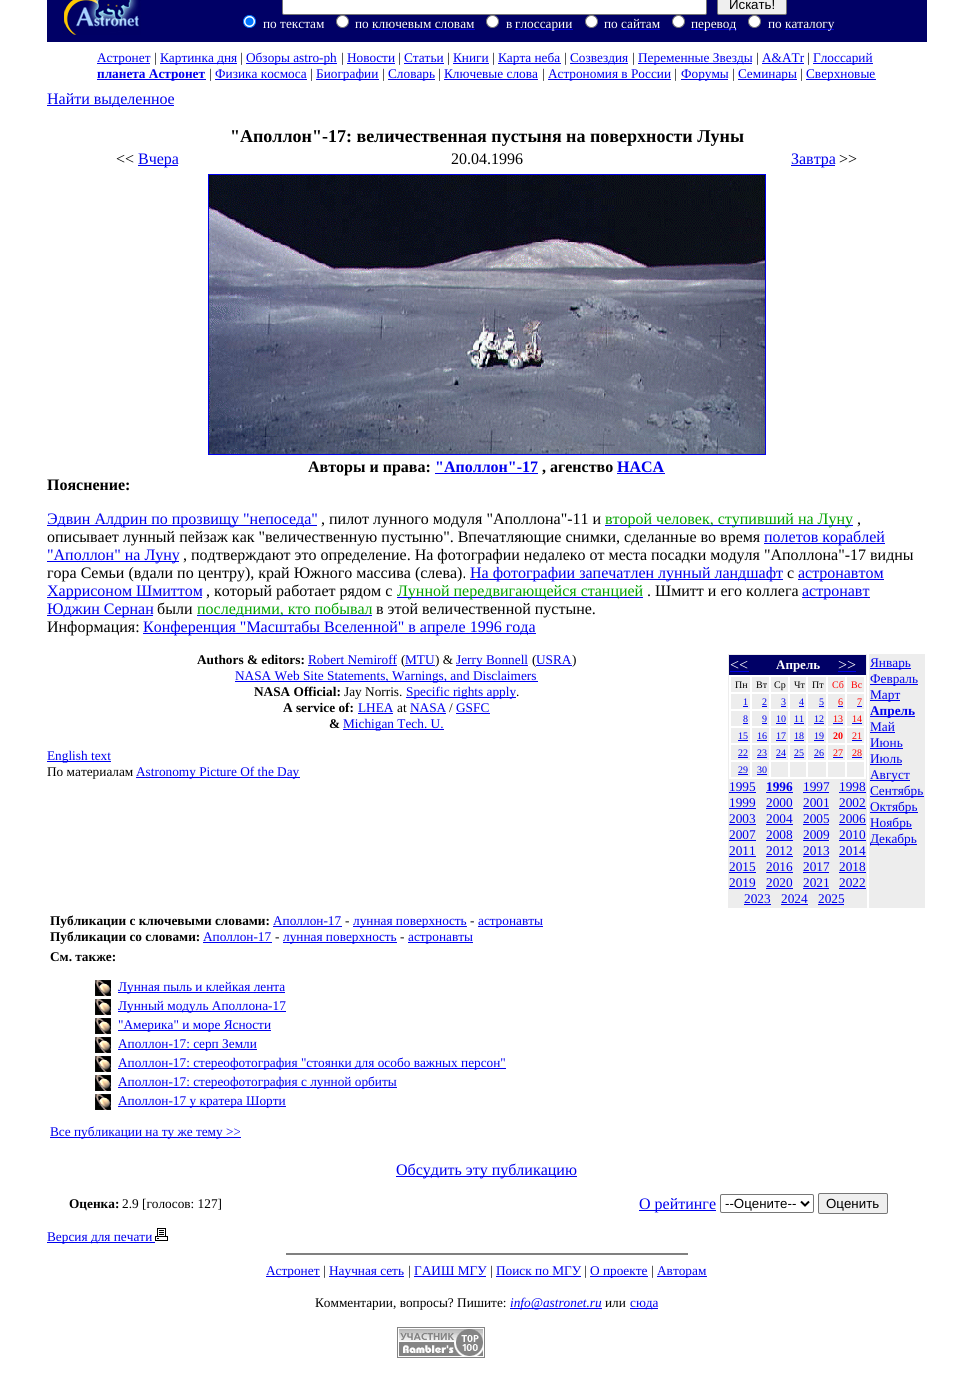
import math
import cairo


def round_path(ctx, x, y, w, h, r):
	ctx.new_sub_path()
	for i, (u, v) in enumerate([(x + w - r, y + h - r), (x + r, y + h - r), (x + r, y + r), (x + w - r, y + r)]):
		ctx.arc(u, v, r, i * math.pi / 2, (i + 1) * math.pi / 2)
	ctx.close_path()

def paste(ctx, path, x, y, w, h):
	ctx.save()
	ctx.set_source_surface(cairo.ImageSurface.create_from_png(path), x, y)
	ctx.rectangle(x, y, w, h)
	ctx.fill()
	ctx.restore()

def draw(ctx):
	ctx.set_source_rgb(1, 1, 1)
	ctx.paint()
	ctx.set_source_rgb(0, 0, 0.4)
	ctx.rectangle(47, 0, 880, 42)
	ctx.fill()
	paste(ctx, 'media/1.png', 62, 0, 79, 35)
	ctx.set_source_rgb(1, 1, 1)
	round_path(ctx, 282.5, -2.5, 424, 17, 1.5)
	ctx.fill_preserve()
	ctx.set_source_rgb(0.463, 0.463, 0.463)
	ctx.set_line_width(1)
	ctx.stroke()
	ctx.set_source_rgb(0.937, 0.937, 0.937)
	round_path(ctx, 717.5, -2.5, 69, 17, 1.5)
	ctx.fill_preserve()
	ctx.set_source_rgb(0.463, 0.463, 0.463)
	ctx.stroke()
	ctx.select_font_face('Liberation Sans')
	ctx.set_font_size(13.3)
	ctx.set_source_rgb(0, 0, 0)
	ctx.move_to(729, 9)
	ctx.show_text('Искать!')
	ctx.set_source_rgb(1, 1, 1)
	ctx.new_path()
	ctx.arc(249.5, 21.5, 6, 0, 2 * math.pi)
	ctx.fill_preserve()
	ctx.set_source_rgb(0, 0.459, 1)
	ctx.stroke()
	ctx.arc(249.5, 21.5, 4, 0, 2 * math.pi)
	ctx.fill()
	ctx.select_font_face('Liberation Serif')
	ctx.set_source_rgb(1, 1, 1)
	ctx.move_to(263, 28)
	ctx.show_text('по текстам')
	ctx.new_path()
	ctx.arc(342.5, 21.5, 6, 0, 2 * math.pi)
	ctx.fill_preserve()
	ctx.set_source_rgb(0.463, 0.463, 0.463)
	ctx.stroke()
	ctx.set_source_rgb(1, 1, 1)
	ctx.move_to(355, 28)
	ctx.show_text('по ключевым словам')
	ctx.new_path()
	ctx.arc(492.5, 21.5, 6, 0, 2 * math.pi)
	ctx.fill_preserve()
	ctx.set_source_rgb(0.463, 0.463, 0.463)
	ctx.stroke()
	ctx.set_source_rgb(1, 1, 1)
	ctx.move_to(506, 28)
	ctx.show_text('в')
	ctx.set_source_rgb(0, 0, 0.933)
	ctx.rectangle(515, 29, 58, 1)
	ctx.fill()
	ctx.set_source_rgb(1, 1, 1)
	ctx.move_to(515, 28)
	ctx.show_text('глоссарии')
	ctx.new_path()
	ctx.arc(591.5, 21.5, 6, 0, 2 * math.pi)
	ctx.fill_preserve()
	ctx.set_source_rgb(0.463, 0.463, 0.463)
	ctx.stroke()
	ctx.set_source_rgb(1, 1, 1)
	ctx.move_to(604, 28)
	ctx.show_text('по сайтам')
	ctx.new_path()
	ctx.arc(678.5, 21.5, 6, 0, 2 * math.pi)
	ctx.fill_preserve()
	ctx.set_source_rgb(0.463, 0.463, 0.463)
	ctx.stroke()
	ctx.set_source_rgb(0, 0, 0.933)
	ctx.rectangle(691, 29, 46, 1)
	ctx.fill()
	ctx.set_source_rgb(1, 1, 1)
	ctx.move_to(691, 28)
	ctx.show_text('перевод')
	ctx.new_path()
	ctx.arc(754.5, 21.5, 6, 0, 2 * math.pi)
	ctx.fill_preserve()
	ctx.set_source_rgb(0.463, 0.463, 0.463)
	ctx.stroke()
	ctx.set_source_rgb(1, 1, 1)
	ctx.move_to(768, 28)
	ctx.show_text('по')
	ctx.set_source_rgb(0, 0, 0.933)
	ctx.rectangle(785, 29, 49, 1)
	ctx.fill()
	ctx.set_source_rgb(1, 1, 1)
	ctx.move_to(785, 28)
	ctx.show_text('каталогу')
	ctx.set_source_rgb(0, 0, 0.933)
	ctx.rectangle(372, 29, 103, 1)
	ctx.rectangle(621, 29, 39, 1)
	ctx.rectangle(97, 63, 53, 1)
	ctx.fill()
	ctx.move_to(97, 62)
	ctx.show_text('Астронет')
	ctx.set_source_rgb(0, 0, 0)
	ctx.move_to(154, 62)
	ctx.show_text('|')
	ctx.set_source_rgb(0, 0, 0.933)
	ctx.rectangle(160, 63, 77, 1)
	ctx.fill()
	ctx.move_to(160, 62)
	ctx.show_text('Картинка дня')
	ctx.set_source_rgb(0, 0, 0)
	ctx.move_to(240, 62)
	ctx.show_text('|')
	ctx.set_source_rgb(0, 0, 0.933)
	ctx.rectangle(246, 63, 91, 1)
	ctx.fill()
	ctx.move_to(246, 62)
	ctx.show_text('Обзоры astro-ph')
	ctx.set_source_rgb(0, 0, 0)
	ctx.move_to(341, 62)
	ctx.show_text('|')
	ctx.set_source_rgb(0, 0, 0.933)
	ctx.move_to(347, 62)
	ctx.show_text('Новости')
	ctx.rectangle(347, 63, 48, 1)
	ctx.fill()
	ctx.set_source_rgb(0, 0, 0)
	ctx.move_to(398, 62)
	ctx.show_text('|')
	ctx.set_source_rgb(0, 0, 0.933)
	ctx.move_to(404, 62)
	ctx.show_text('Статьи')
	ctx.rectangle(404, 63, 40, 1)
	ctx.fill()
	ctx.set_source_rgb(0, 0, 0)
	ctx.move_to(447, 62)
	ctx.show_text('|')
	ctx.set_source_rgb(0, 0, 0.933)
	ctx.move_to(453, 62)
	ctx.show_text('Книги')
	ctx.rectangle(453, 63, 36, 1)
	ctx.fill()
	ctx.set_source_rgb(0, 0, 0)
	ctx.move_to(492, 62)
	ctx.show_text('|')
	ctx.set_source_rgb(0, 0, 0.933)
	ctx.rectangle(498, 63, 63, 1)
	ctx.fill()
	ctx.move_to(498, 62)
	ctx.show_text('Карта неба')
	ctx.set_source_rgb(0, 0, 0)
	ctx.move_to(564, 62)
	ctx.show_text('|')
	ctx.set_source_rgb(0, 0, 0.933)
	ctx.rectangle(570, 63, 58, 1)
	ctx.fill()
	ctx.move_to(570, 62)
	ctx.show_text('Созвездия')
	ctx.set_source_rgb(0, 0, 0)
	ctx.move_to(632, 62)
	ctx.show_text('|')
	ctx.set_source_rgb(0, 0, 0.933)
	ctx.rectangle(638, 63, 114, 1)
	ctx.fill()
	ctx.move_to(638, 62)
	ctx.show_text('Переменные Звезды')
	ctx.set_source_rgb(0, 0, 0)
	ctx.move_to(756, 62)
	ctx.show_text('|')
	ctx.set_source_rgb(0, 0, 0.933)
	ctx.move_to(762, 62)
	ctx.show_text('A&ATr')
	ctx.rectangle(762, 63, 42, 1)
	ctx.fill()
	ctx.set_source_rgb(0, 0, 0)
	ctx.move_to(807, 62)
	ctx.show_text('|')
	ctx.set_source_rgb(0, 0, 0.933)
	ctx.rectangle(813, 63, 60, 1)
	ctx.fill()
	ctx.move_to(813, 62)
	ctx.show_text('Глоссарий')
	ctx.rectangle(97, 79, 109, 1)
	ctx.fill()
	ctx.select_font_face('Liberation Serif', cairo.FONT_SLANT_NORMAL, cairo.FONT_WEIGHT_BOLD)
	ctx.move_to(97, 78)
	ctx.show_text('планета Астронет')
	ctx.select_font_face('Liberation Serif')
	ctx.set_source_rgb(0, 0, 0)
	ctx.move_to(209, 78)
	ctx.show_text('|')
	ctx.set_source_rgb(0, 0, 0.933)
	ctx.move_to(215, 78)
	ctx.show_text('Физика космоса')
	ctx.rectangle(215, 79, 92, 1)
	ctx.fill()
	ctx.set_source_rgb(0, 0, 0)
	ctx.move_to(310, 78)
	ctx.show_text('|')
	ctx.set_source_rgb(0, 0, 0.933)
	ctx.rectangle(316, 79, 63, 1)
	ctx.fill()
	ctx.move_to(316, 78)
	ctx.show_text('Биографии')
	ctx.set_source_rgb(0, 0, 0)
	ctx.move_to(382, 78)
	ctx.show_text('|')
	ctx.set_source_rgb(0, 0, 0.933)
	ctx.rectangle(388, 79, 47, 1)
	ctx.fill()
	ctx.move_to(388, 78)
	ctx.show_text('Словарь')
	ctx.set_source_rgb(0, 0, 0)
	ctx.move_to(438, 78)
	ctx.show_text('|')
	ctx.set_source_rgb(0, 0, 0.933)
	ctx.move_to(444, 78)
	ctx.show_text('Ключевые слова')
	ctx.rectangle(444, 79, 94, 1)
	ctx.fill()
	ctx.set_source_rgb(0, 0, 0)
	ctx.move_to(542, 78)
	ctx.show_text('|')
	ctx.set_source_rgb(0, 0, 0.933)
	ctx.rectangle(548, 79, 123, 1)
	ctx.fill()
	ctx.move_to(548, 78)
	ctx.show_text('Астрономия в России')
	ctx.set_source_rgb(0, 0, 0)
	ctx.move_to(674, 78)
	ctx.show_text('|')
	ctx.set_source_rgb(0, 0, 0.933)
	ctx.rectangle(681, 79, 47, 1)
	ctx.fill()
	ctx.move_to(681, 78)
	ctx.show_text('Форумы')
	ctx.set_source_rgb(0, 0, 0)
	ctx.move_to(732, 78)
	ctx.show_text('|')
	ctx.set_source_rgb(0, 0, 0.933)
	ctx.rectangle(738, 79, 59, 1)
	ctx.fill()
	ctx.move_to(738, 78)
	ctx.show_text('Семинары')
	ctx.set_source_rgb(0, 0, 0)
	ctx.move_to(800, 78)
	ctx.show_text('|')
	ctx.set_source_rgb(0, 0, 0.933)
	ctx.rectangle(806, 79, 70, 1)
	ctx.fill()
	ctx.move_to(806, 78)
	ctx.show_text('Сверхновые')
	ctx.rectangle(47, 105, 127, 1)
	ctx.fill()
	ctx.set_font_size(16)
	ctx.move_to(47, 104)
	ctx.show_text('Найти выделенное')
	ctx.select_font_face('Liberation Serif', cairo.FONT_SLANT_NORMAL, cairo.FONT_WEIGHT_BOLD)
	ctx.set_font_size(18)
	ctx.set_source_rgb(0, 0, 0)
	ctx.move_to(230, 142)
	ctx.show_text('"Аполлон"-17: величественная пустыня на поверхности Луны')
	ctx.select_font_face('Liberation Serif')
	ctx.set_font_size(16)
	ctx.move_to(116, 164)
	ctx.show_text('<<')
	ctx.set_source_rgb(0, 0, 0.933)
	ctx.rectangle(138, 165, 40, 1)
	ctx.fill()
	ctx.move_to(138, 164)
	ctx.show_text('Вчера')
	ctx.set_source_rgb(0, 0, 0)
	ctx.move_to(451, 164)
	ctx.show_text('20.04.1996')
	ctx.set_source_rgb(0, 0, 0.933)
	ctx.rectangle(791, 165, 44, 1)
	ctx.fill()
	ctx.move_to(791, 164)
	ctx.show_text('Завтра')
	ctx.set_source_rgb(0, 0, 0)
	ctx.move_to(839, 164)
	ctx.show_text('>>')
	ctx.rectangle(208.5, 174.5, 557, 280)
	ctx.set_source_rgb(0, 0, 0.933)
	ctx.stroke()
	paste(ctx, 'media/2.png', 209, 175, 556, 279)
	ctx.select_font_face('Liberation Serif', cairo.FONT_SLANT_NORMAL, cairo.FONT_WEIGHT_BOLD)
	ctx.set_source_rgb(0, 0, 0)
	ctx.move_to(308, 472)
	ctx.show_text('Авторы и права:')
	ctx.set_source_rgb(0, 0, 0.933)
	ctx.move_to(435, 472)
	ctx.show_text('"Аполлон"-17')
	ctx.set_source_rgb(0, 0, 0)
	ctx.move_to(542, 472)
	ctx.show_text(', агенство')
	ctx.set_source_rgb(0, 0, 0.933)
	ctx.rectangle(435, 473, 103, 1)
	ctx.fill()
	ctx.rectangle(617, 473, 48, 1)
	ctx.fill()
	ctx.move_to(617, 472)
	ctx.show_text('НАСА')
	ctx.set_source_rgb(0, 0, 0)
	ctx.move_to(47, 490)
	ctx.show_text('Пояснение:')
	ctx.set_source_rgb(0, 0, 0.933)
	ctx.rectangle(47, 525, 270, 1)
	ctx.fill()
	ctx.select_font_face('Liberation Serif')
	ctx.move_to(47, 524)
	ctx.show_text('Эдвин Алдрин по прозвищу "непоседа"')
	ctx.set_source_rgb(0, 0, 0)
	ctx.move_to(321, 524)
	ctx.show_text(', пилот лунного модуля "Аполлона"-11 и')
	ctx.set_source_rgb(0, 0, 0.933)
	ctx.rectangle(605, 525, 248, 1)
	ctx.fill()
	ctx.set_source_rgb(0, 0.627, 0)
	ctx.move_to(605, 524)
	ctx.show_text('второй человек, ступивший на Луну')
	ctx.set_source_rgb(0, 0, 0)
	ctx.move_to(857, 524)
	ctx.show_text(',')
	ctx.move_to(47, 542)
	ctx.show_text('описывает лунный пейзаж как "величественную пустыню". Впечатляющие снимки, сделанные во время')
	ctx.set_source_rgb(0, 0, 0.933)
	ctx.rectangle(764, 543, 121, 1)
	ctx.fill()
	ctx.move_to(764, 542)
	ctx.show_text('полетов кораблей')
	ctx.rectangle(47, 561, 132, 1)
	ctx.fill()
	ctx.move_to(47, 560)
	ctx.show_text('"Аполлон" на Луну')
	ctx.set_source_rgb(0, 0, 0)
	ctx.move_to(183, 560)
	ctx.show_text(', подтверждают это определение. На фотографии недалеко от места посадки модуля "Аполлона"-17 видны')
	ctx.move_to(47, 578)
	ctx.show_text('гора Семьи (вдали по центру), край Южного массива (слева).')
	ctx.set_source_rgb(0, 0, 0.933)
	ctx.rectangle(470, 579, 313, 1)
	ctx.fill()
	ctx.move_to(470, 578)
	ctx.show_text('На фотографии запечатлен лунный ландшафт')
	ctx.set_source_rgb(0, 0, 0)
	ctx.move_to(787, 578)
	ctx.show_text('с')
	ctx.set_source_rgb(0, 0, 0.933)
	ctx.rectangle(798, 579, 86, 1)
	ctx.fill()
	ctx.move_to(798, 578)
	ctx.show_text('астронавтом')
	ctx.rectangle(47, 597, 155, 1)
	ctx.fill()
	ctx.move_to(47, 596)
	ctx.show_text('Харрисоном Шмиттом')
	ctx.set_source_rgb(0, 0, 0)
	ctx.move_to(206, 596)
	ctx.show_text(', который работает рядом с')
	ctx.set_source_rgb(0, 0, 0.933)
	ctx.rectangle(397, 597, 246, 1)
	ctx.fill()
	ctx.set_source_rgb(0, 0.627, 0)
	ctx.move_to(397, 596)
	ctx.show_text('Лунной передвигающейся станцией')
	ctx.set_source_rgb(0, 0, 0)
	ctx.move_to(647, 596)
	ctx.show_text('. Шмитт и его коллега')
	ctx.set_source_rgb(0, 0, 0.933)
	ctx.rectangle(802, 597, 68, 1)
	ctx.fill()
	ctx.move_to(802, 596)
	ctx.show_text('астронавт')
	ctx.rectangle(47, 615, 106, 1)
	ctx.fill()
	ctx.move_to(47, 614)
	ctx.show_text('Юджин Сернан')
	ctx.set_source_rgb(0, 0, 0)
	ctx.move_to(157, 614)
	ctx.show_text('были')
	ctx.set_source_rgb(0, 0, 0.933)
	ctx.rectangle(197, 615, 175, 1)
	ctx.fill()
	ctx.set_source_rgb(0, 0.627, 0)
	ctx.move_to(197, 614)
	ctx.show_text('последними, кто побывал')
	ctx.set_source_rgb(0, 0, 0)
	ctx.move_to(376, 614)
	ctx.show_text('в этой величественной пустыне.')
	ctx.move_to(47, 632)
	ctx.show_text('Информация:')
	ctx.set_source_rgb(0, 0, 0.933)
	ctx.rectangle(143, 633, 393, 1)
	ctx.fill()
	ctx.move_to(143, 632)
	ctx.show_text('Конференция "Масштабы Вселенной" в апреле 1996 года')
	ctx.rectangle(47, 761, 64, 1)
	ctx.fill()
	ctx.set_font_size(13.3)
	ctx.move_to(47, 760)
	ctx.show_text('English text')
	ctx.set_source_rgb(0, 0, 0)
	ctx.move_to(47, 776)
	ctx.show_text('По материалам')
	ctx.set_source_rgb(0, 0, 0.933)
	ctx.rectangle(136, 777, 164, 1)
	ctx.fill()
	ctx.move_to(136, 776)
	ctx.show_text('Astronomy Picture Of the Day')
	ctx.select_font_face('Liberation Serif', cairo.FONT_SLANT_NORMAL, cairo.FONT_WEIGHT_BOLD)
	ctx.set_source_rgb(0, 0, 0)
	ctx.move_to(197, 664)
	ctx.show_text('Authors & editors:')
	ctx.select_font_face('Liberation Serif')
	ctx.set_source_rgb(0, 0, 0.933)
	ctx.move_to(308, 664)
	ctx.show_text('Robert Nemiroff')
	ctx.rectangle(308, 665, 89, 1)
	ctx.fill()
	ctx.set_source_rgb(0, 0, 0)
	ctx.move_to(401, 664)
	ctx.show_text('(')
	ctx.set_source_rgb(0, 0, 0.933)
	ctx.rectangle(405, 665, 30, 1)
	ctx.fill()
	ctx.move_to(405, 664)
	ctx.show_text('MTU')
	ctx.set_source_rgb(0, 0, 0)
	ctx.move_to(435, 664)
	ctx.show_text(') &')
	ctx.set_source_rgb(0, 0, 0.933)
	ctx.rectangle(456, 665, 72, 1)
	ctx.fill()
	ctx.move_to(456, 664)
	ctx.show_text('Jerry Bonnell')
	ctx.set_source_rgb(0, 0, 0)
	ctx.move_to(532, 664)
	ctx.show_text('(')
	ctx.set_source_rgb(0, 0, 0.933)
	ctx.rectangle(536, 665, 36, 1)
	ctx.fill()
	ctx.move_to(536, 664)
	ctx.show_text('USRA')
	ctx.set_source_rgb(0, 0, 0)
	ctx.move_to(572, 664)
	ctx.show_text(')')
	ctx.set_source_rgb(0.929, 0.929, 0.929)
	ctx.rectangle(728, 654, 139, 254)
	ctx.fill()
	ctx.set_source_rgb(0, 0, 0.4)
	ctx.rectangle(729, 655, 137, 20)
	ctx.fill()
	ctx.set_font_size(16)
	ctx.set_source_rgb(1, 1, 1)
	ctx.move_to(730, 670)
	ctx.show_text('<<')
	ctx.set_source_rgb(0, 0, 0.933)
	ctx.rectangle(730, 671, 19, 1)
	ctx.fill()
	ctx.select_font_face('Liberation Serif', cairo.FONT_SLANT_NORMAL, cairo.FONT_WEIGHT_BOLD)
	ctx.set_font_size(13)
	ctx.set_source_rgb(1, 1, 1)
	ctx.move_to(776, 669)
	ctx.show_text('Апрель')
	ctx.select_font_face('Liberation Serif')
	ctx.set_font_size(16)
	ctx.move_to(838, 670)
	ctx.show_text('>>')
	ctx.set_source_rgb(0, 0, 0.933)
	ctx.rectangle(838, 671, 18, 1)
	ctx.fill()
	ctx.set_source_rgb(1, 1, 1)
	ctx.rectangle(729, 675, 137, 104)
	ctx.fill()
	ctx.set_source_rgb(0.929, 0.929, 0.929)
	ctx.rectangle(731, 677, 19, 15)
	ctx.fill()
	ctx.set_font_size(10)
	ctx.set_source_rgb(0, 0, 0)
	ctx.move_to(735, 688)
	ctx.show_text('Пн')
	ctx.set_source_rgb(0.929, 0.929, 0.929)
	ctx.rectangle(752, 677, 17, 15)
	ctx.fill()
	ctx.set_source_rgb(0, 0, 0)
	ctx.move_to(756, 688)
	ctx.show_text('Вт')
	ctx.set_source_rgb(0.929, 0.929, 0.929)
	ctx.rectangle(771, 677, 17, 15)
	ctx.fill()
	ctx.set_source_rgb(0, 0, 0)
	ctx.move_to(774, 688)
	ctx.show_text('Ср')
	ctx.set_source_rgb(0.929, 0.929, 0.929)
	ctx.rectangle(790, 677, 16, 15)
	ctx.fill()
	ctx.set_source_rgb(0, 0, 0)
	ctx.move_to(794, 688)
	ctx.show_text('Чт')
	ctx.set_source_rgb(0.929, 0.929, 0.929)
	ctx.rectangle(808, 677, 18, 15)
	ctx.fill()
	ctx.set_source_rgb(0, 0, 0)
	ctx.move_to(812, 688)
	ctx.show_text('Пт')
	ctx.set_source_rgb(0.929, 0.929, 0.929)
	ctx.rectangle(828, 677, 17, 15)
	ctx.fill()
	ctx.set_source_rgb(1, 0, 0)
	ctx.move_to(832, 688)
	ctx.show_text('Сб')
	ctx.set_source_rgb(0.929, 0.929, 0.929)
	ctx.rectangle(847, 677, 17, 15)
	ctx.fill()
	ctx.set_source_rgb(1, 0, 0)
	ctx.move_to(851, 688)
	ctx.show_text('Вс')
	ctx.set_source_rgb(0.929, 0.929, 0.929)
	ctx.rectangle(731, 694, 19, 15)
	ctx.fill()
	ctx.set_source_rgb(0, 0, 0.933)
	ctx.move_to(743, 705)
	ctx.show_text('1')
	ctx.rectangle(743, 706, 5, 1)
	ctx.fill()
	ctx.set_source_rgb(0.929, 0.929, 0.929)
	ctx.rectangle(752, 694, 17, 15)
	ctx.fill()
	ctx.set_source_rgb(0, 0, 0.933)
	ctx.move_to(762, 705)
	ctx.show_text('2')
	ctx.rectangle(762, 706, 5, 1)
	ctx.fill()
	ctx.set_source_rgb(0.929, 0.929, 0.929)
	ctx.rectangle(771, 694, 17, 15)
	ctx.fill()
	ctx.set_source_rgb(0, 0, 0.933)
	ctx.move_to(781, 705)
	ctx.show_text('3')
	ctx.rectangle(781, 706, 5, 1)
	ctx.fill()
	ctx.set_source_rgb(0.929, 0.929, 0.929)
	ctx.rectangle(790, 694, 16, 15)
	ctx.fill()
	ctx.set_source_rgb(0, 0, 0.933)
	ctx.move_to(799, 705)
	ctx.show_text('4')
	ctx.rectangle(799, 706, 5, 1)
	ctx.fill()
	ctx.set_source_rgb(0.929, 0.929, 0.929)
	ctx.rectangle(808, 694, 18, 15)
	ctx.fill()
	ctx.set_source_rgb(0, 0, 0.933)
	ctx.move_to(819, 705)
	ctx.show_text('5')
	ctx.rectangle(819, 706, 5, 1)
	ctx.fill()
	ctx.set_source_rgb(0.929, 0.929, 0.929)
	ctx.rectangle(828, 694, 17, 15)
	ctx.fill()
	ctx.set_source_rgb(1, 0, 0)
	ctx.move_to(838, 705)
	ctx.show_text('6')
	ctx.set_source_rgb(0, 0, 0.933)
	ctx.rectangle(838, 706, 5, 1)
	ctx.fill()
	ctx.set_source_rgb(0.929, 0.929, 0.929)
	ctx.rectangle(847, 694, 17, 15)
	ctx.fill()
	ctx.set_source_rgb(1, 0, 0)
	ctx.move_to(857, 705)
	ctx.show_text('7')
	ctx.set_source_rgb(0, 0, 0.933)
	ctx.rectangle(857, 706, 5, 1)
	ctx.fill()
	ctx.set_source_rgb(0.929, 0.929, 0.929)
	ctx.rectangle(731, 711, 19, 15)
	ctx.fill()
	ctx.set_source_rgb(0, 0, 0.933)
	ctx.move_to(743, 722)
	ctx.show_text('8')
	ctx.rectangle(743, 723, 5, 1)
	ctx.fill()
	ctx.set_source_rgb(0.929, 0.929, 0.929)
	ctx.rectangle(752, 711, 17, 15)
	ctx.fill()
	ctx.set_source_rgb(0, 0, 0.933)
	ctx.move_to(762, 722)
	ctx.show_text('9')
	ctx.rectangle(762, 723, 5, 1)
	ctx.fill()
	ctx.set_source_rgb(0.929, 0.929, 0.929)
	ctx.rectangle(771, 711, 17, 15)
	ctx.fill()
	ctx.set_source_rgb(0, 0, 0.933)
	ctx.move_to(776, 722)
	ctx.show_text('10')
	ctx.rectangle(776, 723, 10, 1)
	ctx.fill()
	ctx.set_source_rgb(0.929, 0.929, 0.929)
	ctx.rectangle(790, 711, 16, 15)
	ctx.fill()
	ctx.set_source_rgb(0, 0, 0.933)
	ctx.move_to(794, 722)
	ctx.show_text('11')
	ctx.rectangle(794, 723, 10, 1)
	ctx.fill()
	ctx.set_source_rgb(0.929, 0.929, 0.929)
	ctx.rectangle(808, 711, 18, 15)
	ctx.fill()
	ctx.set_source_rgb(0, 0, 0.933)
	ctx.move_to(814, 722)
	ctx.show_text('12')
	ctx.rectangle(814, 723, 10, 1)
	ctx.fill()
	ctx.set_source_rgb(0.929, 0.929, 0.929)
	ctx.rectangle(828, 711, 17, 15)
	ctx.fill()
	ctx.set_source_rgb(1, 0, 0)
	ctx.move_to(833, 722)
	ctx.show_text('13')
	ctx.set_source_rgb(0, 0, 0.933)
	ctx.rectangle(833, 723, 10, 1)
	ctx.fill()
	ctx.set_source_rgb(0.929, 0.929, 0.929)
	ctx.rectangle(847, 711, 17, 15)
	ctx.fill()
	ctx.set_source_rgb(1, 0, 0)
	ctx.move_to(852, 722)
	ctx.show_text('14')
	ctx.set_source_rgb(0, 0, 0.933)
	ctx.rectangle(852, 723, 10, 1)
	ctx.fill()
	ctx.set_source_rgb(0.929, 0.929, 0.929)
	ctx.rectangle(731, 728, 19, 15)
	ctx.fill()
	ctx.set_source_rgb(0, 0, 0.933)
	ctx.move_to(738, 739)
	ctx.show_text('15')
	ctx.rectangle(738, 740, 10, 1)
	ctx.fill()
	ctx.set_source_rgb(0.929, 0.929, 0.929)
	ctx.rectangle(752, 728, 17, 15)
	ctx.fill()
	ctx.set_source_rgb(0, 0, 0.933)
	ctx.move_to(757, 739)
	ctx.show_text('16')
	ctx.rectangle(757, 740, 10, 1)
	ctx.fill()
	ctx.set_source_rgb(0.929, 0.929, 0.929)
	ctx.rectangle(771, 728, 17, 15)
	ctx.fill()
	ctx.set_source_rgb(0, 0, 0.933)
	ctx.move_to(776, 739)
	ctx.show_text('17')
	ctx.rectangle(776, 740, 10, 1)
	ctx.fill()
	ctx.set_source_rgb(0.929, 0.929, 0.929)
	ctx.rectangle(790, 728, 16, 15)
	ctx.fill()
	ctx.set_source_rgb(0, 0, 0.933)
	ctx.move_to(794, 739)
	ctx.show_text('18')
	ctx.rectangle(794, 740, 10, 1)
	ctx.fill()
	ctx.set_source_rgb(0.929, 0.929, 0.929)
	ctx.rectangle(808, 728, 18, 15)
	ctx.fill()
	ctx.set_source_rgb(0, 0, 0.933)
	ctx.move_to(814, 739)
	ctx.show_text('19')
	ctx.rectangle(814, 740, 10, 1)
	ctx.fill()
	ctx.set_source_rgb(0.929, 0.929, 0.929)
	ctx.rectangle(828, 728, 17, 15)
	ctx.fill()
	ctx.select_font_face('Liberation Serif', cairo.FONT_SLANT_NORMAL, cairo.FONT_WEIGHT_BOLD)
	ctx.set_source_rgb(1, 0, 0)
	ctx.move_to(833, 739)
	ctx.show_text('20')
	ctx.set_source_rgb(0.929, 0.929, 0.929)
	ctx.rectangle(847, 728, 17, 15)
	ctx.fill()
	ctx.select_font_face('Liberation Serif')
	ctx.set_source_rgb(1, 0, 0)
	ctx.move_to(852, 739)
	ctx.show_text('21')
	ctx.set_source_rgb(0, 0, 0.933)
	ctx.rectangle(852, 740, 10, 1)
	ctx.fill()
	ctx.set_source_rgb(0.929, 0.929, 0.929)
	ctx.rectangle(731, 745, 19, 15)
	ctx.fill()
	ctx.set_source_rgb(0, 0, 0.933)
	ctx.move_to(738, 756)
	ctx.show_text('22')
	ctx.rectangle(738, 757, 10, 1)
	ctx.fill()
	ctx.set_source_rgb(0.929, 0.929, 0.929)
	ctx.rectangle(752, 745, 17, 15)
	ctx.fill()
	ctx.set_source_rgb(0, 0, 0.933)
	ctx.move_to(757, 756)
	ctx.show_text('23')
	ctx.rectangle(757, 757, 10, 1)
	ctx.fill()
	ctx.set_source_rgb(0.929, 0.929, 0.929)
	ctx.rectangle(771, 745, 17, 15)
	ctx.fill()
	ctx.set_source_rgb(0, 0, 0.933)
	ctx.move_to(776, 756)
	ctx.show_text('24')
	ctx.rectangle(776, 757, 10, 1)
	ctx.fill()
	ctx.set_source_rgb(0.929, 0.929, 0.929)
	ctx.rectangle(790, 745, 16, 15)
	ctx.fill()
	ctx.set_source_rgb(0, 0, 0.933)
	ctx.move_to(794, 756)
	ctx.show_text('25')
	ctx.rectangle(794, 757, 10, 1)
	ctx.fill()
	ctx.set_source_rgb(0.929, 0.929, 0.929)
	ctx.rectangle(808, 745, 18, 15)
	ctx.fill()
	ctx.set_source_rgb(0, 0, 0.933)
	ctx.move_to(814, 756)
	ctx.show_text('26')
	ctx.rectangle(814, 757, 10, 1)
	ctx.fill()
	ctx.set_source_rgb(0.929, 0.929, 0.929)
	ctx.rectangle(828, 745, 17, 15)
	ctx.fill()
	ctx.set_source_rgb(1, 0, 0)
	ctx.move_to(833, 756)
	ctx.show_text('27')
	ctx.set_source_rgb(0, 0, 0.933)
	ctx.rectangle(833, 757, 10, 1)
	ctx.fill()
	ctx.set_source_rgb(0.929, 0.929, 0.929)
	ctx.rectangle(847, 745, 17, 15)
	ctx.fill()
	ctx.set_source_rgb(1, 0, 0)
	ctx.move_to(852, 756)
	ctx.show_text('28')
	ctx.set_source_rgb(0, 0, 0.933)
	ctx.rectangle(852, 757, 10, 1)
	ctx.fill()
	ctx.set_source_rgb(0.929, 0.929, 0.929)
	ctx.rectangle(731, 762, 19, 15)
	ctx.fill()
	ctx.set_source_rgb(0, 0, 0.933)
	ctx.move_to(738, 773)
	ctx.show_text('29')
	ctx.rectangle(738, 774, 10, 1)
	ctx.fill()
	ctx.set_source_rgb(0.929, 0.929, 0.929)
	ctx.rectangle(752, 762, 17, 15)
	ctx.fill()
	ctx.set_source_rgb(0, 0, 0.933)
	ctx.move_to(757, 773)
	ctx.show_text('30')
	ctx.rectangle(757, 774, 10, 1)
	ctx.fill()
	ctx.set_source_rgb(0.929, 0.929, 0.929)
	ctx.rectangle(771, 762, 17, 15)
	ctx.rectangle(790, 762, 16, 15)
	ctx.rectangle(808, 762, 18, 15)
	ctx.rectangle(828, 762, 17, 15)
	ctx.rectangle(847, 762, 17, 15)
	ctx.fill()
	ctx.set_font_size(13.3)
	ctx.set_source_rgb(0, 0, 0.933)
	ctx.move_to(729, 791)
	ctx.show_text('1995')
	ctx.rectangle(729, 792, 27, 1)
	ctx.fill()
	ctx.select_font_face('Liberation Serif', cairo.FONT_SLANT_NORMAL, cairo.FONT_WEIGHT_BOLD)
	ctx.move_to(766, 791)
	ctx.show_text('1996')
	ctx.rectangle(766, 792, 27, 1)
	ctx.fill()
	ctx.select_font_face('Liberation Serif')
	ctx.move_to(803, 791)
	ctx.show_text('1997')
	ctx.rectangle(803, 792, 26, 1)
	ctx.fill()
	ctx.move_to(839, 791)
	ctx.show_text('1998')
	ctx.rectangle(839, 792, 27, 1)
	ctx.fill()
	ctx.move_to(729, 807)
	ctx.show_text('1999')
	ctx.rectangle(729, 808, 27, 1)
	ctx.fill()
	ctx.move_to(766, 807)
	ctx.show_text('2000')
	ctx.rectangle(766, 808, 27, 1)
	ctx.fill()
	ctx.move_to(803, 807)
	ctx.show_text('2001')
	ctx.rectangle(803, 808, 26, 1)
	ctx.fill()
	ctx.move_to(839, 807)
	ctx.show_text('2002')
	ctx.rectangle(839, 808, 27, 1)
	ctx.fill()
	ctx.move_to(729, 823)
	ctx.show_text('2003')
	ctx.rectangle(729, 824, 27, 1)
	ctx.fill()
	ctx.move_to(766, 823)
	ctx.show_text('2004')
	ctx.rectangle(766, 824, 27, 1)
	ctx.fill()
	ctx.move_to(803, 823)
	ctx.show_text('2005')
	ctx.rectangle(803, 824, 26, 1)
	ctx.fill()
	ctx.move_to(839, 823)
	ctx.show_text('2006')
	ctx.rectangle(839, 824, 27, 1)
	ctx.fill()
	ctx.move_to(729, 839)
	ctx.show_text('2007')
	ctx.rectangle(729, 840, 27, 1)
	ctx.fill()
	ctx.move_to(766, 839)
	ctx.show_text('2008')
	ctx.rectangle(766, 840, 27, 1)
	ctx.fill()
	ctx.move_to(803, 839)
	ctx.show_text('2009')
	ctx.rectangle(803, 840, 26, 1)
	ctx.fill()
	ctx.move_to(839, 839)
	ctx.show_text('2010')
	ctx.rectangle(839, 840, 27, 1)
	ctx.fill()
	ctx.move_to(729, 855)
	ctx.show_text('2011')
	ctx.rectangle(729, 856, 27, 1)
	ctx.fill()
	ctx.move_to(766, 855)
	ctx.show_text('2012')
	ctx.rectangle(766, 856, 27, 1)
	ctx.fill()
	ctx.move_to(803, 855)
	ctx.show_text('2013')
	ctx.rectangle(803, 856, 26, 1)
	ctx.fill()
	ctx.move_to(839, 855)
	ctx.show_text('2014')
	ctx.rectangle(839, 856, 27, 1)
	ctx.fill()
	ctx.move_to(729, 871)
	ctx.show_text('2015')
	ctx.rectangle(729, 872, 27, 1)
	ctx.fill()
	ctx.move_to(766, 871)
	ctx.show_text('2016')
	ctx.rectangle(766, 872, 27, 1)
	ctx.fill()
	ctx.move_to(803, 871)
	ctx.show_text('2017')
	ctx.rectangle(803, 872, 26, 1)
	ctx.fill()
	ctx.move_to(839, 871)
	ctx.show_text('2018')
	ctx.rectangle(839, 872, 27, 1)
	ctx.fill()
	ctx.move_to(729, 887)
	ctx.show_text('2019')
	ctx.rectangle(729, 888, 27, 1)
	ctx.fill()
	ctx.move_to(766, 887)
	ctx.show_text('2020')
	ctx.rectangle(766, 888, 27, 1)
	ctx.fill()
	ctx.move_to(803, 887)
	ctx.show_text('2021')
	ctx.rectangle(803, 888, 26, 1)
	ctx.fill()
	ctx.move_to(839, 887)
	ctx.show_text('2022')
	ctx.rectangle(839, 888, 27, 1)
	ctx.fill()
	ctx.move_to(744, 903)
	ctx.show_text('2023')
	ctx.rectangle(744, 904, 27, 1)
	ctx.fill()
	ctx.move_to(781, 903)
	ctx.show_text('2024')
	ctx.rectangle(781, 904, 27, 1)
	ctx.fill()
	ctx.move_to(818, 903)
	ctx.show_text('2025')
	ctx.rectangle(818, 904, 26, 1)
	ctx.fill()
	ctx.set_source_rgb(0.929, 0.929, 0.929)
	ctx.rectangle(869, 654, 56, 254)
	ctx.fill()
	ctx.set_source_rgb(0, 0, 0.933)
	ctx.rectangle(870, 668, 41, 1)
	ctx.fill()
	ctx.move_to(870, 667)
	ctx.show_text('Январь')
	ctx.rectangle(870, 684, 48, 1)
	ctx.fill()
	ctx.move_to(870, 683)
	ctx.show_text('Февраль')
	ctx.rectangle(870, 700, 30, 1)
	ctx.fill()
	ctx.move_to(870, 699)
	ctx.show_text('Март')
	ctx.rectangle(870, 716, 45, 1)
	ctx.fill()
	ctx.select_font_face('Liberation Serif', cairo.FONT_SLANT_NORMAL, cairo.FONT_WEIGHT_BOLD)
	ctx.move_to(870, 715)
	ctx.show_text('Апрель')
	ctx.select_font_face('Liberation Serif')
	ctx.move_to(870, 731)
	ctx.show_text('Май')
	ctx.rectangle(870, 732, 25, 1)
	ctx.fill()
	ctx.move_to(870, 747)
	ctx.show_text('Июнь')
	ctx.rectangle(870, 748, 33, 1)
	ctx.fill()
	ctx.move_to(870, 763)
	ctx.show_text('Июль')
	ctx.rectangle(870, 764, 32, 1)
	ctx.fill()
	ctx.rectangle(870, 780, 40, 1)
	ctx.fill()
	ctx.move_to(870, 779)
	ctx.show_text('Август')
	ctx.rectangle(870, 796, 54, 1)
	ctx.fill()
	ctx.move_to(870, 795)
	ctx.show_text('Сентябрь')
	ctx.rectangle(870, 812, 48, 1)
	ctx.fill()
	ctx.move_to(870, 811)
	ctx.show_text('Октябрь')
	ctx.rectangle(870, 828, 42, 1)
	ctx.fill()
	ctx.move_to(870, 827)
	ctx.show_text('Ноябрь')
	ctx.rectangle(870, 844, 47, 1)
	ctx.fill()
	ctx.move_to(870, 843)
	ctx.show_text('Декабрь')
	ctx.rectangle(235, 681, 303, 1)
	ctx.fill()
	ctx.move_to(235, 680)
	ctx.show_text('NASA Web Site Statements, Warnings, and Disclaimers')
	ctx.select_font_face('Liberation Serif', cairo.FONT_SLANT_NORMAL, cairo.FONT_WEIGHT_BOLD)
	ctx.set_source_rgb(0, 0, 0)
	ctx.move_to(254, 696)
	ctx.show_text('NASA Official:')
	ctx.select_font_face('Liberation Serif')
	ctx.move_to(344, 696)
	ctx.show_text('Jay Norris.')
	ctx.set_source_rgb(0, 0, 0.933)
	ctx.rectangle(406, 697, 110, 1)
	ctx.fill()
	ctx.move_to(406, 696)
	ctx.show_text('Specific rights apply')
	ctx.set_source_rgb(0, 0, 0)
	ctx.move_to(516, 696)
	ctx.show_text('.')
	ctx.select_font_face('Liberation Serif', cairo.FONT_SLANT_NORMAL, cairo.FONT_WEIGHT_BOLD)
	ctx.move_to(283, 712)
	ctx.show_text('A service of:')
	ctx.select_font_face('Liberation Serif')
	ctx.set_source_rgb(0, 0, 0.933)
	ctx.move_to(358, 712)
	ctx.show_text('LHEA')
	ctx.rectangle(358, 713, 35, 1)
	ctx.fill()
	ctx.set_source_rgb(0, 0, 0)
	ctx.move_to(397, 712)
	ctx.show_text('at')
	ctx.set_source_rgb(0, 0, 0.933)
	ctx.move_to(410, 712)
	ctx.show_text('NASA')
	ctx.rectangle(410, 713, 36, 1)
	ctx.fill()
	ctx.set_source_rgb(0, 0, 0)
	ctx.move_to(449, 712)
	ctx.show_text('/')
	ctx.set_source_rgb(0, 0, 0.933)
	ctx.move_to(456, 712)
	ctx.show_text('GSFC')
	ctx.rectangle(456, 713, 34, 1)
	ctx.fill()
	ctx.select_font_face('Liberation Serif', cairo.FONT_SLANT_NORMAL, cairo.FONT_WEIGHT_BOLD)
	ctx.set_source_rgb(0, 0, 0)
	ctx.move_to(329, 728)
	ctx.show_text('&')
	ctx.set_source_rgb(0, 0, 0.933)
	ctx.rectangle(343, 729, 101, 1)
	ctx.fill()
	ctx.select_font_face('Liberation Serif')
	ctx.move_to(343, 728)
	ctx.show_text('Michigan Tech. U.')
	ctx.select_font_face('Liberation Serif', cairo.FONT_SLANT_NORMAL, cairo.FONT_WEIGHT_BOLD)
	ctx.set_source_rgb(0, 0, 0)
	ctx.move_to(50, 925)
	ctx.show_text('Публикации с ключевыми словами:')
	ctx.select_font_face('Liberation Serif')
	ctx.set_source_rgb(0, 0, 0.933)
	ctx.move_to(273, 925)
	ctx.show_text('Аполлон-17')
	ctx.rectangle(273, 926, 69, 1)
	ctx.fill()
	ctx.set_source_rgb(0, 0, 0)
	ctx.move_to(345, 925)
	ctx.show_text('-')
	ctx.set_source_rgb(0, 0, 0.933)
	ctx.rectangle(353, 926, 114, 1)
	ctx.fill()
	ctx.move_to(353, 925)
	ctx.show_text('лунная поверхность')
	ctx.set_source_rgb(0, 0, 0)
	ctx.move_to(470, 925)
	ctx.show_text('-')
	ctx.set_source_rgb(0, 0, 0.933)
	ctx.rectangle(478, 926, 65, 1)
	ctx.fill()
	ctx.move_to(478, 925)
	ctx.show_text('астронавты')
	ctx.select_font_face('Liberation Serif', cairo.FONT_SLANT_NORMAL, cairo.FONT_WEIGHT_BOLD)
	ctx.set_source_rgb(0, 0, 0)
	ctx.move_to(50, 941)
	ctx.show_text('Публикации со словами:')
	ctx.select_font_face('Liberation Serif')
	ctx.set_source_rgb(0, 0, 0.933)
	ctx.move_to(203, 941)
	ctx.show_text('Аполлон-17')
	ctx.rectangle(203, 942, 69, 1)
	ctx.fill()
	ctx.set_source_rgb(0, 0, 0)
	ctx.move_to(275, 941)
	ctx.show_text('-')
	ctx.set_source_rgb(0, 0, 0.933)
	ctx.rectangle(283, 942, 114, 1)
	ctx.fill()
	ctx.move_to(283, 941)
	ctx.show_text('лунная поверхность')
	ctx.set_source_rgb(0, 0, 0)
	ctx.move_to(400, 941)
	ctx.show_text('-')
	ctx.set_source_rgb(0, 0, 0.933)
	ctx.rectangle(408, 942, 65, 1)
	ctx.fill()
	ctx.move_to(408, 941)
	ctx.show_text('астронавты')
	ctx.select_font_face('Liberation Serif', cairo.FONT_SLANT_NORMAL, cairo.FONT_WEIGHT_BOLD)
	ctx.set_source_rgb(0, 0, 0)
	ctx.move_to(50, 961)
	ctx.show_text('См. также:')
	paste(ctx, 'media/3.png', 95, 980, 16, 16)
	ctx.set_source_rgb(0, 0, 0.933)
	ctx.rectangle(118, 992, 167, 1)
	ctx.fill()
	ctx.select_font_face('Liberation Serif')
	ctx.move_to(118, 991)
	ctx.show_text('Лунная пыль и клейкая лента')
	paste(ctx, 'media/3.png', 95, 999, 16, 16)
	ctx.rectangle(118, 1011, 168, 1)
	ctx.fill()
	ctx.move_to(118, 1010)
	ctx.show_text('Лунный модуль Аполлона-17')
	paste(ctx, 'media/3.png', 95, 1018, 16, 16)
	ctx.rectangle(118, 1030, 153, 1)
	ctx.fill()
	ctx.move_to(118, 1029)
	ctx.show_text('"Америка" и море Ясности')
	paste(ctx, 'media/3.png', 95, 1037, 16, 16)
	ctx.rectangle(118, 1049, 139, 1)
	ctx.fill()
	ctx.move_to(118, 1048)
	ctx.show_text('Аполлон-17: серп Земли')
	paste(ctx, 'media/3.png', 95, 1056, 16, 16)
	ctx.rectangle(118, 1068, 388, 1)
	ctx.fill()
	ctx.move_to(118, 1067)
	ctx.show_text('Аполлон-17: стереофотография "стоянки для особо важных персон"')
	paste(ctx, 'media/3.png', 95, 1075, 16, 16)
	ctx.rectangle(118, 1087, 279, 1)
	ctx.fill()
	ctx.move_to(118, 1086)
	ctx.show_text('Аполлон-17: стереофотография с лунной орбиты')
	paste(ctx, 'media/3.png', 95, 1094, 16, 16)
	ctx.rectangle(118, 1106, 168, 1)
	ctx.fill()
	ctx.move_to(118, 1105)
	ctx.show_text('Аполлон-17 у кратера Шорти')
	ctx.rectangle(50, 1137, 191, 1)
	ctx.fill()
	ctx.move_to(50, 1136)
	ctx.show_text('Все публикации на ту же тему >>')
	ctx.rectangle(396, 1176, 181, 1)
	ctx.fill()
	ctx.set_font_size(16)
	ctx.move_to(396, 1175)
	ctx.show_text('Обсудить эту публикацию')
	ctx.select_font_face('Liberation Serif', cairo.FONT_SLANT_NORMAL, cairo.FONT_WEIGHT_BOLD)
	ctx.set_font_size(13.3)
	ctx.set_source_rgb(0, 0, 0)
	ctx.move_to(69, 1208)
	ctx.show_text('Оценка:')
	ctx.select_font_face('Liberation Serif')
	ctx.move_to(122, 1208)
	ctx.show_text('2.9 [голосов: 127]')
	ctx.set_source_rgb(0, 0, 0.933)
	ctx.rectangle(639, 1210, 77, 1)
	ctx.fill()
	ctx.set_font_size(16)
	ctx.move_to(639, 1209)
	ctx.show_text('О рейтинге')
	round_path(ctx, 720.5, 1194.5, 93, 18, 1.5)
	ctx.set_source_rgb(0.463, 0.463, 0.463)
	ctx.stroke()
	ctx.new_path()
	ctx.move_to(801, 1201.5)
	ctx.line_to(805, 1205.5)
	ctx.line_to(809, 1201.5)
	ctx.set_source_rgb(0, 0, 0)
	ctx.set_line_width(2)
	ctx.stroke()
	ctx.select_font_face('Liberation Sans')
	ctx.set_font_size(13.3)
	ctx.move_to(725, 1208)
	ctx.show_text('--Оцените--')
	ctx.set_source_rgb(0.937, 0.937, 0.937)
	round_path(ctx, 818.5, 1193.5, 69, 20, 1.5)
	ctx.fill_preserve()
	ctx.set_source_rgb(0.463, 0.463, 0.463)
	ctx.set_line_width(1)
	ctx.stroke()
	ctx.set_source_rgb(0, 0, 0)
	ctx.move_to(826, 1208)
	ctx.show_text('Оценить')
	ctx.set_source_rgb(0, 0, 0.933)
	ctx.rectangle(47, 1242, 108, 1)
	ctx.fill()
	ctx.select_font_face('Liberation Serif')
	ctx.move_to(47, 1241)
	ctx.show_text('Версия для печати')
	paste(ctx, 'media/4.png', 155, 1228, 13, 13)
	ctx.set_source_rgb(0.502, 0.502, 0.502)
	ctx.rectangle(286, 1253, 402, 2)
	ctx.fill()
	ctx.set_source_rgb(0, 0, 0.933)
	ctx.rectangle(266, 1276, 54, 1)
	ctx.fill()
	ctx.move_to(266, 1275)
	ctx.show_text('Астронет')
	ctx.set_source_rgb(0, 0, 0)
	ctx.move_to(323, 1275)
	ctx.show_text('|')
	ctx.set_source_rgb(0, 0, 0.933)
	ctx.rectangle(329, 1276, 75, 1)
	ctx.fill()
	ctx.move_to(329, 1275)
	ctx.show_text('Научная сеть')
	ctx.set_source_rgb(0, 0, 0)
	ctx.move_to(408, 1275)
	ctx.show_text('|')
	ctx.set_source_rgb(0, 0, 0.933)
	ctx.move_to(414, 1275)
	ctx.show_text('ГАИШ МГУ')
	ctx.rectangle(414, 1276, 72, 1)
	ctx.fill()
	ctx.set_source_rgb(0, 0, 0)
	ctx.move_to(490, 1275)
	ctx.show_text('|')
	ctx.set_source_rgb(0, 0, 0.933)
	ctx.move_to(496, 1275)
	ctx.show_text('Поиск по МГУ')
	ctx.rectangle(496, 1276, 85, 1)
	ctx.fill()
	ctx.set_source_rgb(0, 0, 0)
	ctx.move_to(584, 1275)
	ctx.show_text('|')
	ctx.set_source_rgb(0, 0, 0.933)
	ctx.rectangle(590, 1276, 58, 1)
	ctx.fill()
	ctx.move_to(590, 1275)
	ctx.show_text('О проекте')
	ctx.set_source_rgb(0, 0, 0)
	ctx.move_to(651, 1275)
	ctx.show_text('|')
	ctx.set_source_rgb(0, 0, 0.933)
	ctx.rectangle(657, 1276, 50, 1)
	ctx.fill()
	ctx.move_to(657, 1275)
	ctx.show_text('Авторам')
	ctx.set_source_rgb(0, 0, 0)
	ctx.move_to(315, 1307)
	ctx.show_text('Комментарии, вопросы? Пишите:')
	ctx.set_source_rgb(0, 0, 0.933)
	ctx.rectangle(510, 1308, 92, 1)
	ctx.fill()
	ctx.select_font_face('Liberation Serif', cairo.FONT_SLANT_ITALIC)
	ctx.move_to(510, 1307)
	ctx.show_text('info@astronet.ru')
	ctx.select_font_face('Liberation Serif')
	ctx.set_source_rgb(0, 0, 0)
	ctx.move_to(605, 1307)
	ctx.show_text('или')
	ctx.set_source_rgb(0, 0, 0.933)
	ctx.rectangle(630, 1308, 28, 1)
	ctx.fill()
	ctx.move_to(630, 1307)
	ctx.show_text('сюда')
	paste(ctx, 'media/5.png', 397, 1327, 88, 31)


surface = cairo.ImageSurface(cairo.FORMAT_RGB24, 973, 1387)
ctx = cairo.Context(surface)
options = cairo.FontOptions()
options.set_hint_metrics(cairo.HINT_METRICS_OFF)
options.set_hint_style(cairo.HINT_STYLE_NONE)
ctx.set_font_options(options)
ctx.set_miter_limit(4)
draw(ctx)
surface.write_to_png('image.png')
